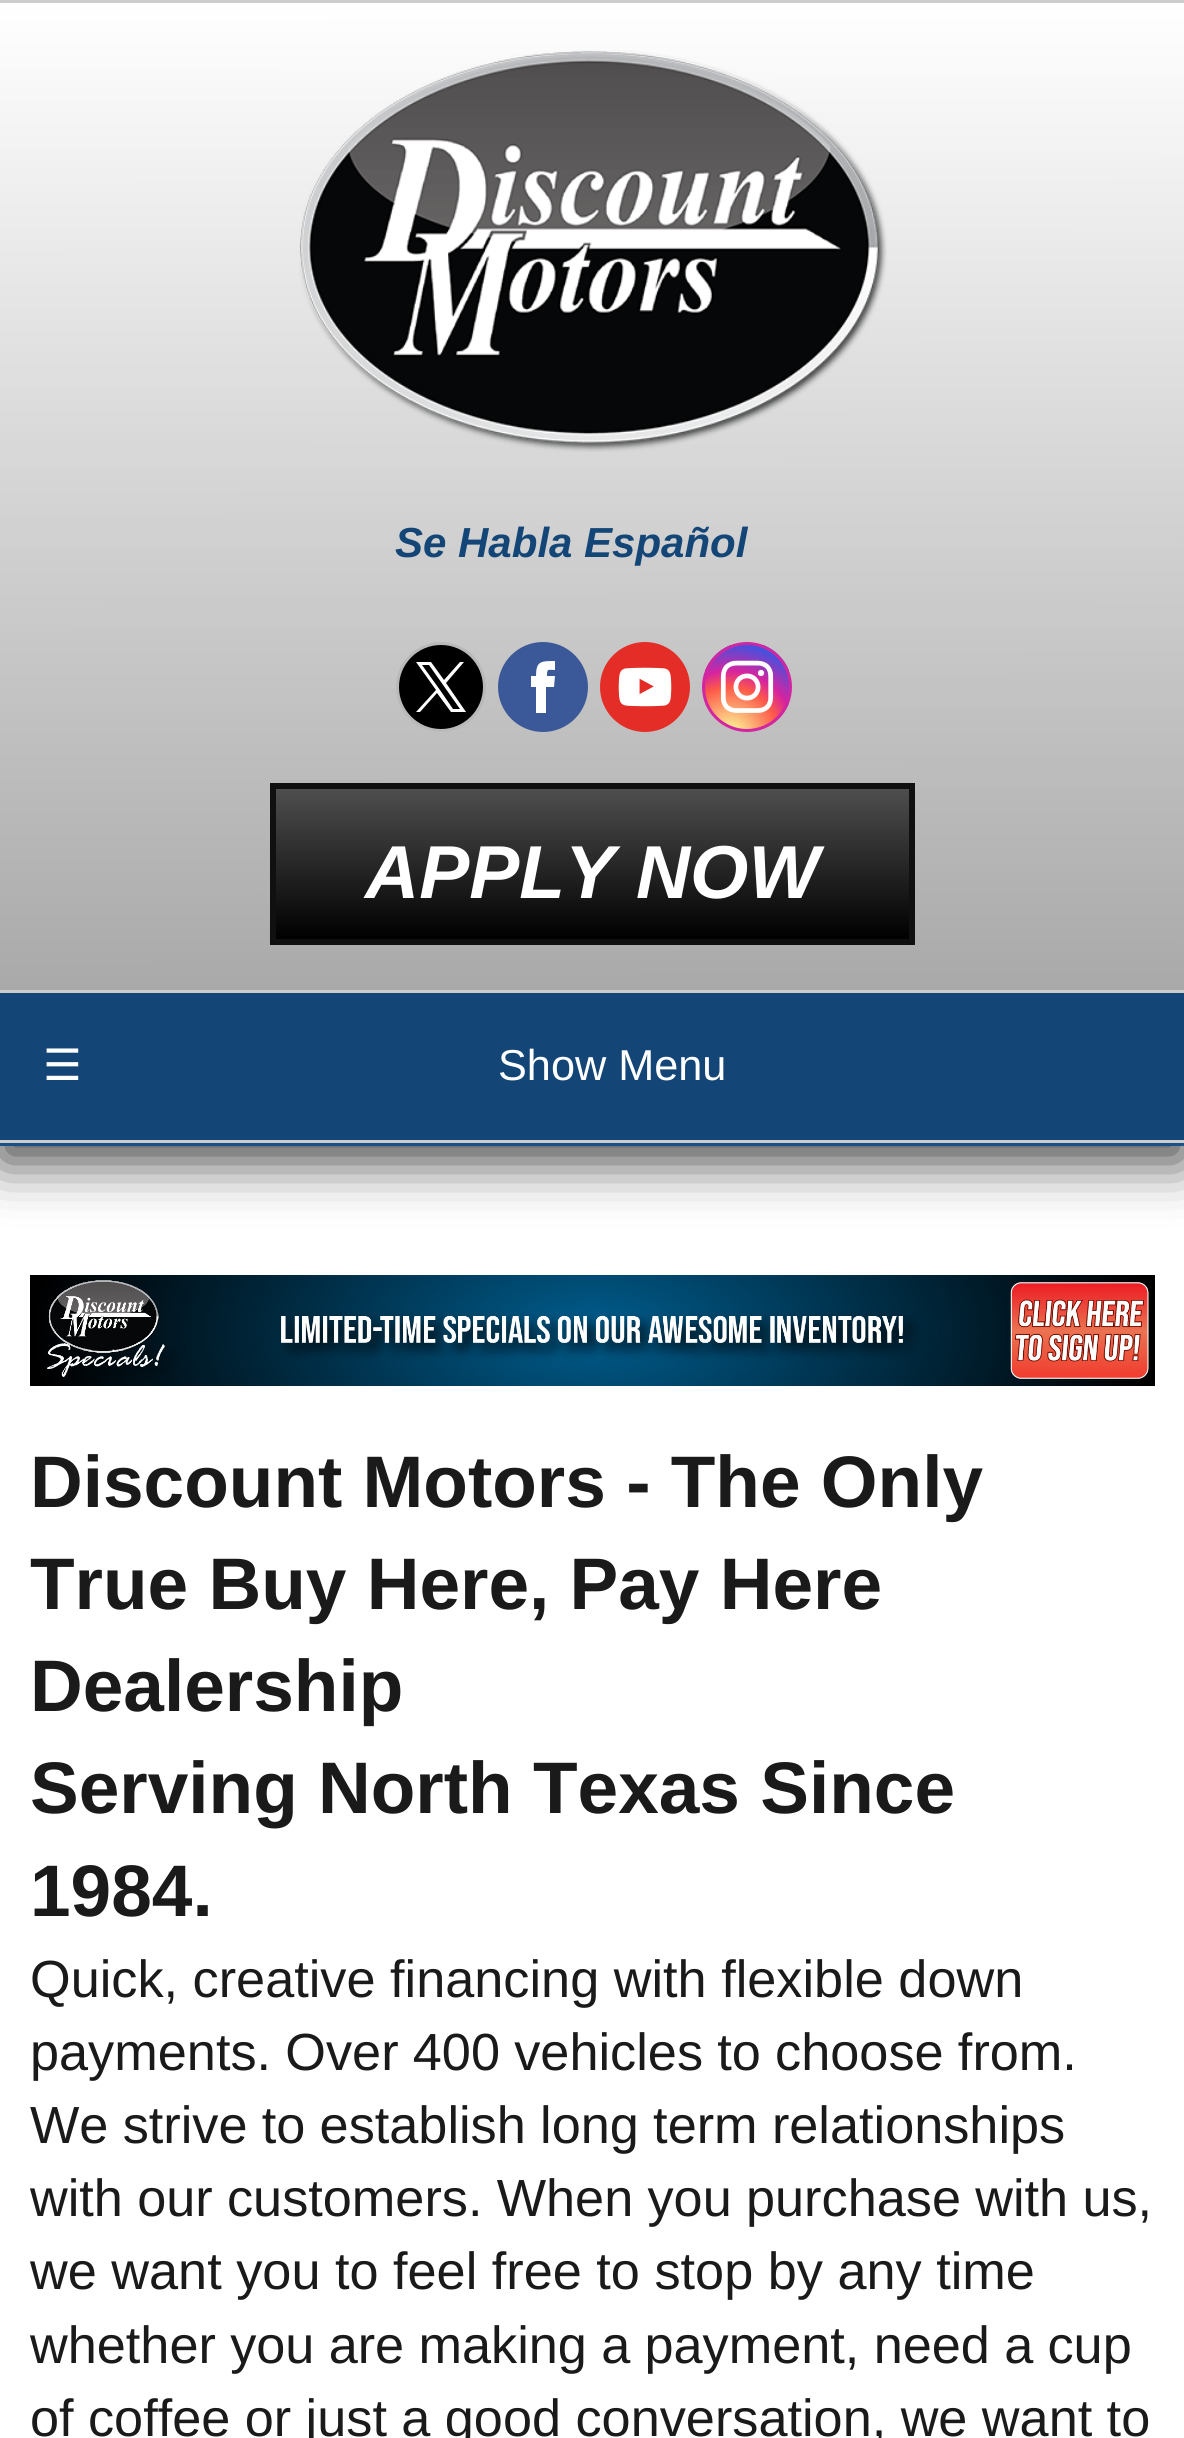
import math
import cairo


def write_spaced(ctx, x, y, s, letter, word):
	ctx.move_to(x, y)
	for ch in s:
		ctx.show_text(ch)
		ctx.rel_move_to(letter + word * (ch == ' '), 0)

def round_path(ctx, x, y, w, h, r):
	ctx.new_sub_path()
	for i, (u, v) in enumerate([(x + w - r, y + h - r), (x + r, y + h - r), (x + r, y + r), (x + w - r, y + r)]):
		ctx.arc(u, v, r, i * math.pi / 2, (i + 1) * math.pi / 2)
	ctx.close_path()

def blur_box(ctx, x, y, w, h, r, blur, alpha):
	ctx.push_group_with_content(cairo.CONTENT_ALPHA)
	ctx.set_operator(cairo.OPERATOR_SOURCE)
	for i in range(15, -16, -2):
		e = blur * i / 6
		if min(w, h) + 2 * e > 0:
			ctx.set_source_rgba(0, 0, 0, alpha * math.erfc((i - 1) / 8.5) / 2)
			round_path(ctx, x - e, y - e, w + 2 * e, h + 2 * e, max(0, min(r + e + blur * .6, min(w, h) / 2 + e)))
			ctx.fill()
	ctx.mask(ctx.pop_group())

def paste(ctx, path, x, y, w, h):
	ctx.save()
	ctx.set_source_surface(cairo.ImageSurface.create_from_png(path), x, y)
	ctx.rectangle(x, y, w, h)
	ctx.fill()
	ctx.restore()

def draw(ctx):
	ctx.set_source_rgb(0.8, 0.8, 0.8)
	ctx.paint()
	ctx.set_source_rgb(1, 1, 1)
	ctx.rectangle(0, 1146, 1184, 1292)
	ctx.fill()
	ctx.set_source_rgb(0, 0, 0)
	blur_box(ctx, 0, 1005, 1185, 156, 0, 27, 0.75)
	gradient = cairo.LinearGradient(592, 3, 593, 990)
	gradient.add_color_stop_rgba(0, 1, 1, 1, 1)
	gradient.add_color_stop_rgba(1, 0.663, 0.663, 0.663, 1)
	ctx.set_source(gradient)
	ctx.rectangle(0, 3, 1184, 987)
	ctx.fill()
	paste(ctx, 'media/1.png', 299, 50, 588, 402)
	ctx.select_font_face('Liberation Sans', cairo.FONT_SLANT_ITALIC, cairo.FONT_WEIGHT_BOLD)
	ctx.set_font_size(42)
	ctx.set_source_rgb(0.075, 0.275, 0.467)
	ctx.move_to(395, 557)
	ctx.show_text('Se Habla Español')
	ctx.set_source_rgb(0, 0, 0)
	ctx.new_path()
	ctx.arc(441, 687, 43.5, 0, 2 * math.pi)
	ctx.fill_preserve()
	ctx.set_source_rgb(0.725, 0.725, 0.725)
	ctx.set_line_width(3)
	ctx.stroke()
	ctx.set_source_rgb(1, 1, 1)
	ctx.new_path()
	ctx.move_to(446, 683)
	ctx.line_to(464, 662)
	ctx.line_to(460, 662)
	ctx.line_to(444, 680)
	ctx.line_to(431, 662)
	ctx.line_to(416, 662)
	ctx.line_to(436, 690)
	ctx.line_to(416, 712)
	ctx.line_to(420, 712)
	ctx.line_to(437, 693)
	ctx.line_to(451, 712)
	ctx.line_to(466, 712)
	ctx.close_path()
	ctx.move_to(440, 690)
	ctx.line_to(422, 665)
	ctx.line_to(429, 665)
	ctx.line_to(460, 709)
	ctx.line_to(453, 709)
	ctx.close_path()
	ctx.fill()
	ctx.set_source_rgb(0.231, 0.349, 0.596)
	ctx.arc(543, 687, 43.5, 0, 2 * math.pi)
	ctx.fill_preserve()
	ctx.stroke()
	ctx.set_source_rgb(1, 1, 1)
	ctx.new_path()
	ctx.move_to(536, 713)
	ctx.line_to(546, 713)
	ctx.line_to(546, 687)
	ctx.line_to(554, 687)
	ctx.line_to(555, 676)
	ctx.line_to(547, 676)
	ctx.curve_to(547, 668, 548, 670, 555, 670)
	ctx.line_to(555, 661)
	ctx.curve_to(541, 661, 536, 661, 536, 676)
	ctx.line_to(531, 676)
	ctx.line_to(531, 687)
	ctx.line_to(536, 687)
	ctx.close_path()
	ctx.fill()
	ctx.set_source_rgb(0.898, 0.176, 0.153)
	ctx.arc(645, 687, 43.5, 0, 2 * math.pi)
	ctx.fill_preserve()
	ctx.stroke()
	paste(ctx, 'media/2.png', 618, 667, 54, 40)
	ctx.save()
	round_path(ctx, 702, 642, 90, 90, 45)
	ctx.clip()
	gradient = cairo.RadialGradient(730, 735, 0, 730, 735, 107)
	gradient.add_color_stop_rgba(0, 0.992, 0.957, 0.592, 1)
	gradient.add_color_stop_rgba(0.05, 0.992, 0.957, 0.592, 1)
	gradient.add_color_stop_rgba(0.45, 0.992, 0.349, 0.286, 1)
	gradient.add_color_stop_rgba(0.6, 0.839, 0.141, 0.624, 1)
	gradient.add_color_stop_rgba(0.9, 0.157, 0.353, 0.922, 1)
	ctx.set_source(gradient)
	ctx.rectangle(705, 645, 84, 84)
	ctx.fill()
	ctx.restore()
	ctx.arc(747, 687, 43.5, 0, 2 * math.pi)
	ctx.set_source_rgb(0.816, 0.149, 0.635)
	ctx.stroke()
	paste(ctx, 'media/3.png', 720, 660, 54, 53)
	gradient = cairo.LinearGradient(593, 789, 593, 939)
	gradient.add_color_stop_rgba(0, 0.306, 0.306, 0.306, 1)
	gradient.add_color_stop_rgba(1, 0, 0, 0, 1)
	ctx.set_source(gradient)
	ctx.rectangle(276, 789, 633, 150)
	ctx.fill()
	ctx.rectangle(273, 786, 639, 156)
	ctx.set_source_rgb(0.063, 0.063, 0.063)
	ctx.set_line_width(6)
	ctx.stroke()
	ctx.set_font_size(75)
	ctx.set_source_rgb(1, 1, 1)
	ctx.move_to(365, 898)
	ctx.show_text('APPLY NOW')
	ctx.set_source_rgb(0.075, 0.275, 0.467)
	ctx.rectangle(0, 993, 1184, 147)
	ctx.fill()
	ctx.set_source_rgb(0.102, 0.322, 0.533)
	ctx.rectangle(0, 1143, 1184, 3)
	ctx.fill()
	ctx.set_source_rgb(0.8, 0.8, 0.8)
	ctx.rectangle(0, 990, 1184, 3)
	ctx.rectangle(0, 1140, 1184, 3)
	ctx.fill()
	ctx.select_font_face('DejaVu Sans')
	ctx.set_font_size(43.25)
	ctx.set_source_rgb(1, 1, 1)
	ctx.move_to(43, 1080)
	ctx.show_text('☰')
	ctx.select_font_face('Liberation Sans')
	ctx.move_to(498, 1080)
	ctx.show_text('Show Menu')
	paste(ctx, 'media/4.png', 30, 1275, 1125, 111)
	ctx.select_font_face('Liberation Sans', cairo.FONT_SLANT_NORMAL, cairo.FONT_WEIGHT_BOLD)
	ctx.set_font_size(73)
	ctx.set_source_rgb(0.102, 0.102, 0.102)
	for x, y, s in [
		(30, 1507, 'Discount Motors - The Only'),
		(30, 1609, 'True Buy Here, Pay Here'),
		(30, 1711, 'Dealership'),
		(30, 1813, 'Serving North Texas Since'),
		(30, 1916, '1984.'),
	]:
		ctx.move_to(x, y)
		ctx.show_text(s)
	ctx.select_font_face('Liberation Sans')
	ctx.set_font_size(52.25)
	ctx.move_to(30, 1997)
	ctx.show_text('Quick, creative financing with flexible down')
	for x, y, s in [
		(30, 2070, 'payments. Over 400 vehicles to choose from.'),
		(30, 2143, 'We strive to establish long term relationships'),
		(30, 2216, 'with our customers. When you purchase with us,'),
	]:
		write_spaced(ctx, x, y, s, 0, -0.25)
	ctx.move_to(30, 2289)
	ctx.show_text('we want you to feel free to stop by any time')
	write_spaced(ctx, 30, 2363, 'whether you are making a payment, need a cup', 0, -0.25)
	write_spaced(ctx, 30, 2436, 'of coffee or just a good conversation, we want to', 0, -0.1)


surface = cairo.ImageSurface(cairo.FORMAT_RGB24, 1184, 2438)
ctx = cairo.Context(surface)
options = cairo.FontOptions()
options.set_hint_metrics(cairo.HINT_METRICS_OFF)
options.set_hint_style(cairo.HINT_STYLE_NONE)
ctx.set_font_options(options)
ctx.set_miter_limit(4)
draw(ctx)
surface.write_to_png('image.png')
